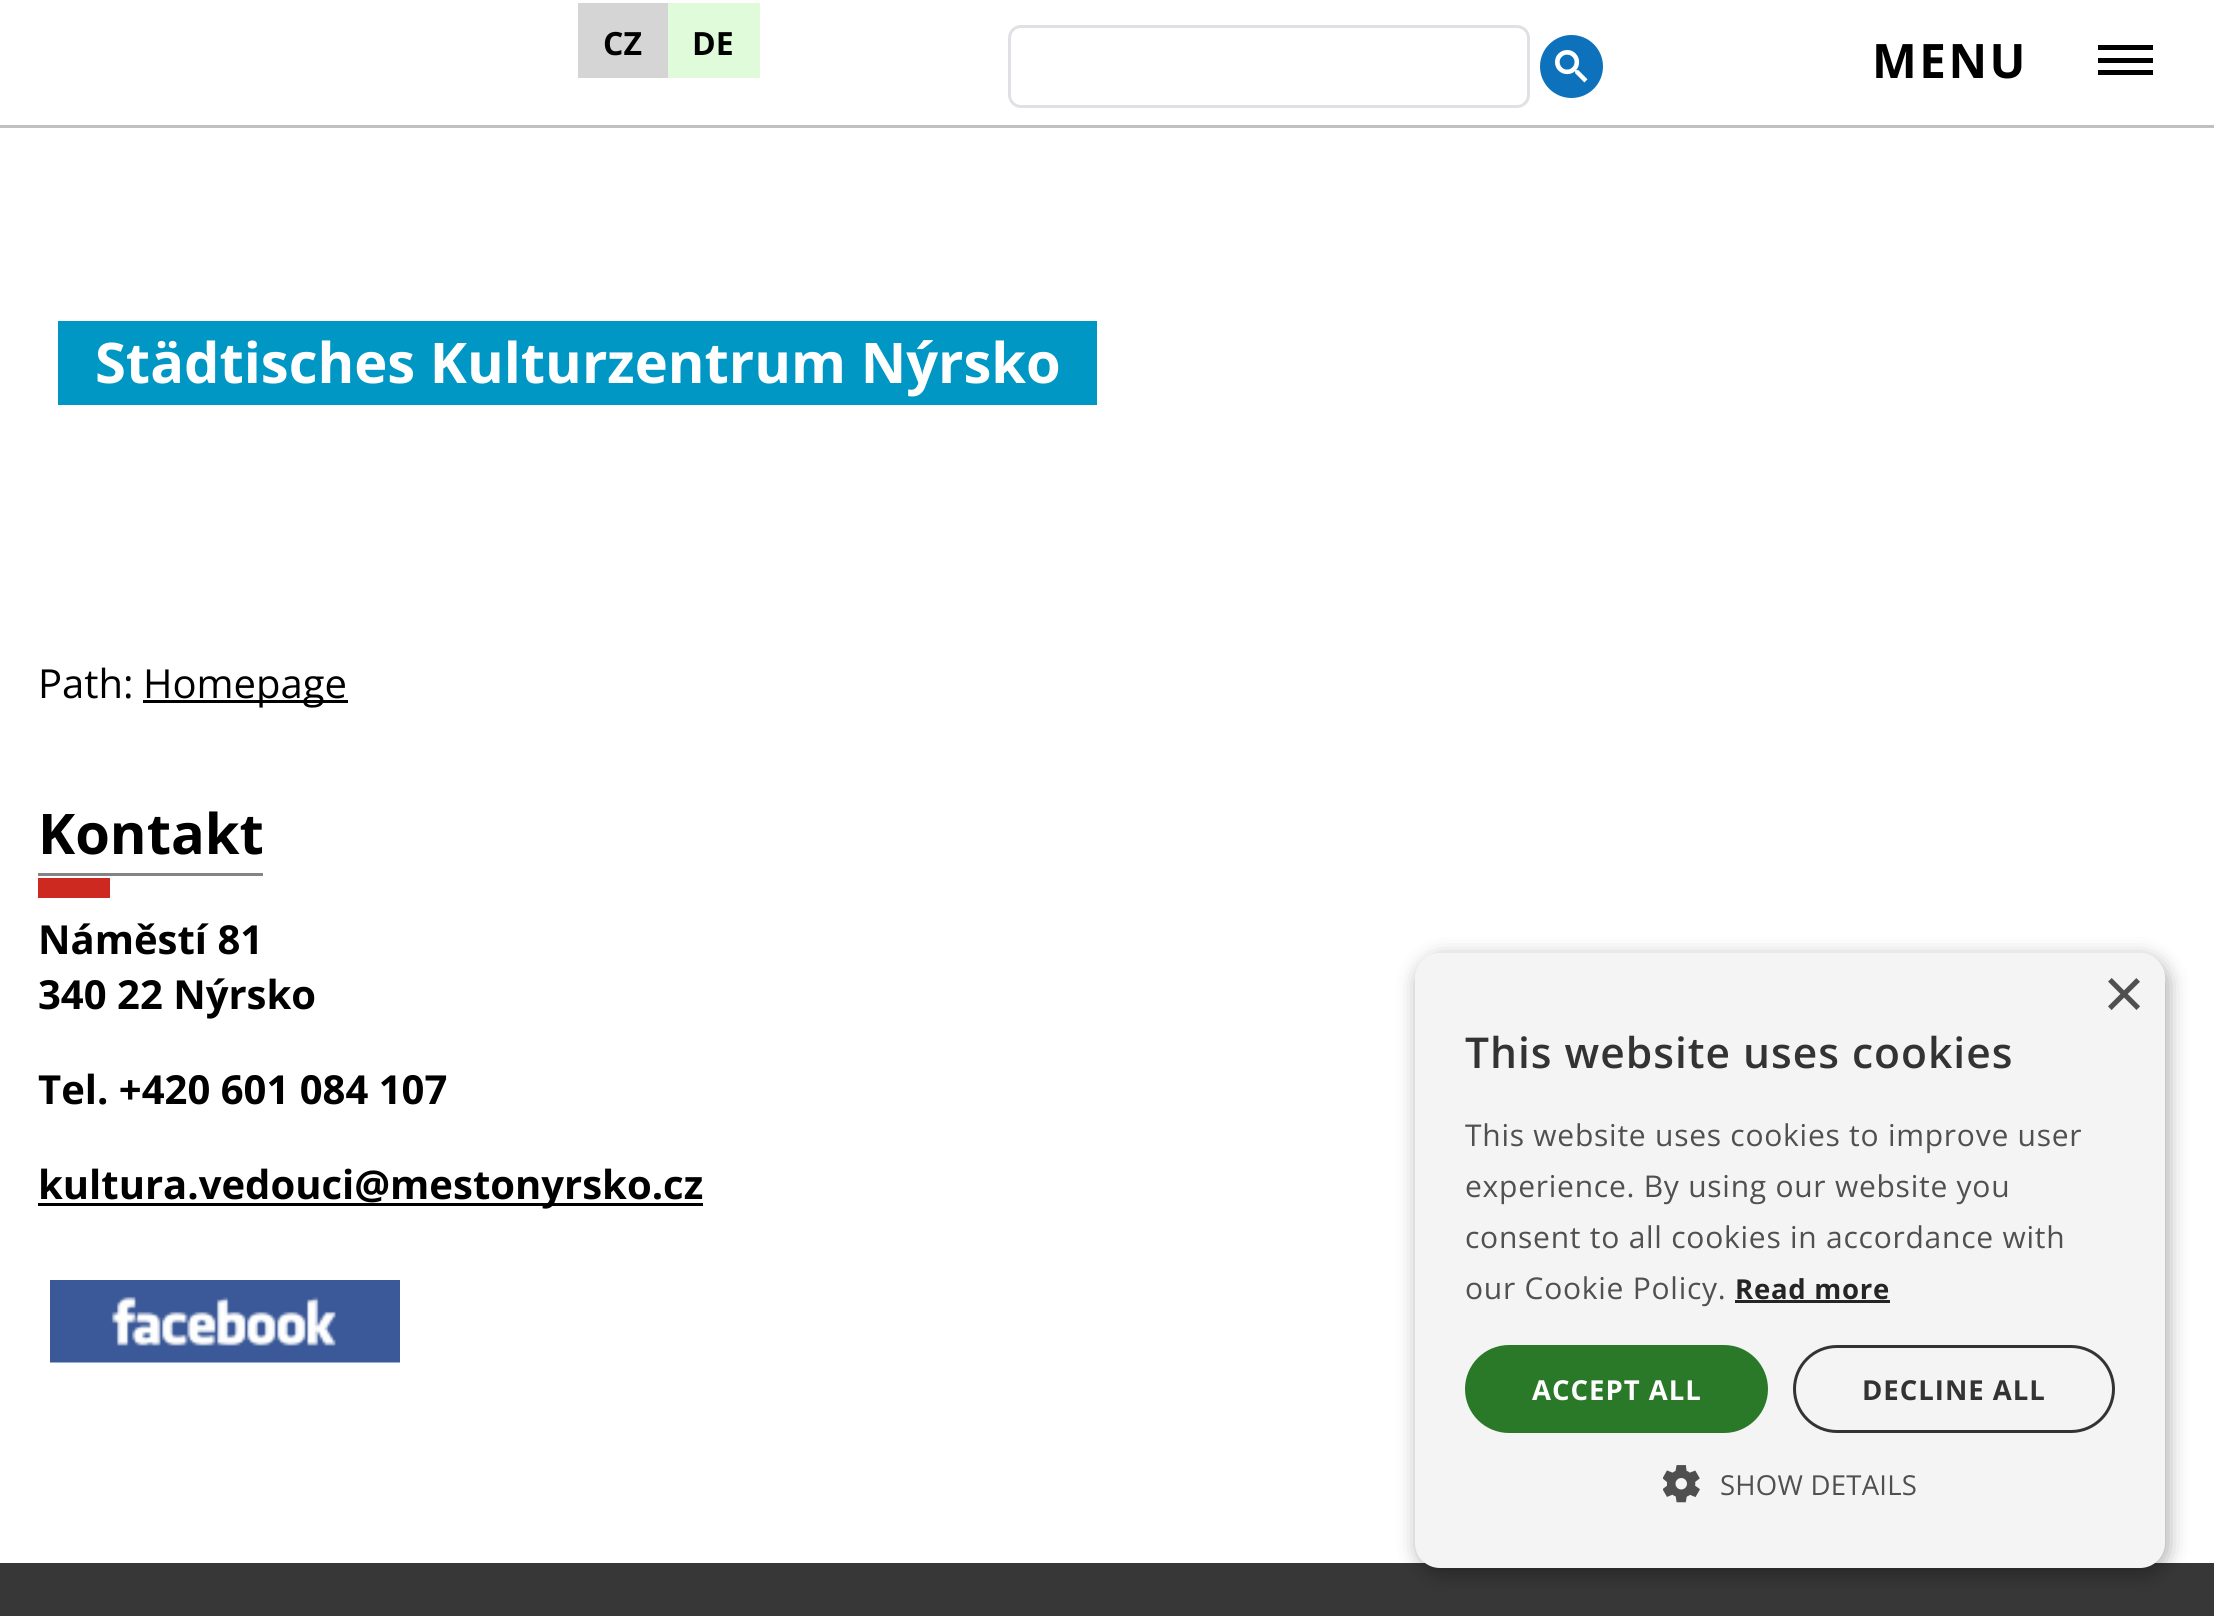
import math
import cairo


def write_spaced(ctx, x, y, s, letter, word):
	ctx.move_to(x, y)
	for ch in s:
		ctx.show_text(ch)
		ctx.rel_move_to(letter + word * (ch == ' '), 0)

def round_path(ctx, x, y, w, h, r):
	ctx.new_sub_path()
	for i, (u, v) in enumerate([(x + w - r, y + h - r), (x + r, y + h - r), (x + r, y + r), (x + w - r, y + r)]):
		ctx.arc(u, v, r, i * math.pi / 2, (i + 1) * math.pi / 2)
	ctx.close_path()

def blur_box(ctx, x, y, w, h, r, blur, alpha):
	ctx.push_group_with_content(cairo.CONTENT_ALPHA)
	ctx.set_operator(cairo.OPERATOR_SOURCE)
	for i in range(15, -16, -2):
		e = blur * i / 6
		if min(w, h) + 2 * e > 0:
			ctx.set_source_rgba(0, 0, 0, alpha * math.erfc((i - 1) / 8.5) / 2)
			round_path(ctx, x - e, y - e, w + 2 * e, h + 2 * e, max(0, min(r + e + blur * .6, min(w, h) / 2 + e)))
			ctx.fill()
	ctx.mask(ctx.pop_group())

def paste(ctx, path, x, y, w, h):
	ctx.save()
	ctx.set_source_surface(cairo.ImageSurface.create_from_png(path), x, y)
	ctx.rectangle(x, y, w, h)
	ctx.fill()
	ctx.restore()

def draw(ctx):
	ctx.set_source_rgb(1, 1, 1)
	ctx.paint()
	ctx.set_source_rgb(0.835, 0.835, 0.835)
	ctx.rectangle(578, 3, 90, 75)
	ctx.fill()
	ctx.select_font_face('Open Sans', cairo.FONT_SLANT_NORMAL, cairo.FONT_WEIGHT_BOLD)
	ctx.set_font_size(32)
	ctx.set_source_rgb(0, 0, 0)
	ctx.move_to(603, 55)
	ctx.show_text('CZ')
	ctx.set_source_rgb(0.878, 0.984, 0.855)
	ctx.rectangle(668, 3, 92, 75)
	ctx.fill()
	ctx.set_source_rgb(0, 0, 0)
	ctx.move_to(692, 55)
	ctx.show_text('DE')
	round_path(ctx, 1009.5, 26.5, 519, 80, 11.5)
	ctx.set_source_rgb(0.875, 0.882, 0.898)
	ctx.set_line_width(3)
	ctx.stroke()
	ctx.set_source_rgb(0.051, 0.447, 0.733)
	ctx.arc(1571.5, 66.5, 34, 0, 2 * math.pi)
	ctx.fill_preserve()
	ctx.set_source_rgb(1, 1, 1)
	ctx.set_line_width(5)
	ctx.stroke()
	paste(ctx, 'media/1.png', 1555, 50, 33, 33)
	ctx.set_source_rgb(0, 0.592, 0.773)
	ctx.rectangle(58, 321, 1039, 84)
	ctx.fill()
	ctx.set_font_size(56)
	ctx.set_source_rgb(1, 1, 1)
	ctx.move_to(95, 383)
	ctx.show_text('Städtisches Kulturzentrum Nýrsko')
	ctx.select_font_face('Open Sans')
	ctx.set_font_size(40)
	ctx.set_source_rgb(0, 0, 0)
	ctx.move_to(38, 698)
	ctx.show_text('Path:')
	ctx.rectangle(143, 700, 205, 3)
	ctx.fill()
	ctx.move_to(143, 698)
	ctx.show_text('Homepage')
	ctx.set_source_rgb(0.518, 0.518, 0.518)
	ctx.rectangle(38, 873, 225, 3)
	ctx.fill()
	ctx.select_font_face('Open Sans', cairo.FONT_SLANT_NORMAL, cairo.FONT_WEIGHT_BOLD)
	ctx.set_font_size(56)
	ctx.set_source_rgb(0, 0, 0)
	ctx.move_to(38, 854)
	ctx.show_text('Kontakt')
	ctx.set_source_rgb(0.808, 0.161, 0.129)
	ctx.rectangle(38, 878, 72, 20)
	ctx.fill()
	ctx.set_font_size(40)
	ctx.set_source_rgb(0, 0, 0)
	for x, y, s in [
		(38, 954, 'Náměstí 81'),
		(38, 1009, '340 22 Nýrsko'),
		(38, 1104, 'Tel. +420 601 084 107'),
	]:
		ctx.move_to(x, y)
		ctx.show_text(s)
	ctx.rectangle(38, 1203, 665, 3)
	ctx.fill()
	ctx.move_to(38, 1199)
	ctx.show_text('kultura.vedouci@mestonyrsko.cz')
	paste(ctx, 'media/2.png', 50, 1280, 350, 83)
	ctx.set_source_rgb(0.216, 0.216, 0.216)
	ctx.rectangle(0, 1563, 2214, 53)
	ctx.fill()
	ctx.set_source_rgb(0.753, 0.753, 0.753)
	ctx.rectangle(0, 125, 2214, 3)
	ctx.fill()
	ctx.set_font_size(47.5)
	ctx.set_source_rgb(0, 0, 0)
	write_spaced(ctx, 1872, 78, 'MENU', 2.5, 0)
	ctx.rectangle(2098, 45, 55, 5)
	ctx.rectangle(2098, 58, 55, 5)
	ctx.rectangle(2098, 70, 55, 5)
	ctx.fill()
	ctx.set_source_rgb(0, 0, 0)
	blur_box(ctx, 1418, 958, 750, 615, 25, 10, 0.35)
	ctx.set_source_rgb(0.957, 0.957, 0.957)
	round_path(ctx, 1415, 953, 750, 615, 25)
	ctx.fill()
	ctx.select_font_face('Liberation Sans')
	ctx.set_font_size(72)
	ctx.set_source_rgb(0.314, 0.314, 0.314)
	ctx.move_to(2103, 1018)
	ctx.show_text('×')
	ctx.select_font_face('Open Sans SemiBold')
	ctx.set_font_size(42.5)
	ctx.set_source_rgb(0.2, 0.2, 0.2)
	write_spaced(ctx, 1465, 1068, 'This website uses cookies', 1, 0)
	ctx.select_font_face('Open Sans')
	ctx.set_font_size(30)
	ctx.set_source_rgb(0.314, 0.314, 0.314)
	for x, y, s in [
		(1465, 1146, 'This website uses cookies to improve user'),
		(1465, 1197, 'experience. By using our website you'),
		(1465, 1248, 'consent to all cookies in accordance with'),
		(1465, 1299, 'our Cookie Policy.'),
	]:
		write_spaced(ctx, x, y, s, 0.75, 0)
	ctx.select_font_face('Open Sans', cairo.FONT_SLANT_NORMAL, cairo.FONT_WEIGHT_BOLD)
	ctx.set_font_size(27.5)
	ctx.set_source_rgb(0.145, 0.145, 0.145)
	write_spaced(ctx, 1735, 1299, 'Read more', 0.75, 0)
	ctx.rectangle(1735, 1300, 155, 3)
	ctx.fill()
	ctx.set_source_rgb(0.161, 0.475, 0.161)
	round_path(ctx, 1465, 1345, 303, 88, 44)
	ctx.fill()
	ctx.set_source_rgb(1, 1, 1)
	write_spaced(ctx, 1532, 1400, 'ACCEPT ALL', 1, 0)
	round_path(ctx, 1794.5, 1346.5, 319, 85, 42.5)
	ctx.set_source_rgb(0.2, 0.2, 0.2)
	ctx.set_line_width(3)
	ctx.stroke()
	write_spaced(ctx, 1862, 1400, 'DECLINE ALL', 1, 0)
	paste(ctx, 'media/3.png', 1663, 1465, 37, 38)
	ctx.select_font_face('Open Sans')
	ctx.set_source_rgb(0.314, 0.314, 0.314)
	write_spaced(ctx, 1720, 1495, 'SHOW DETAILS', 0.25, 0)


surface = cairo.ImageSurface(cairo.FORMAT_RGB24, 2214, 1616)
ctx = cairo.Context(surface)
options = cairo.FontOptions()
options.set_hint_metrics(cairo.HINT_METRICS_OFF)
options.set_hint_style(cairo.HINT_STYLE_NONE)
ctx.set_font_options(options)
ctx.set_miter_limit(4)
draw(ctx)
surface.write_to_png('image.png')
